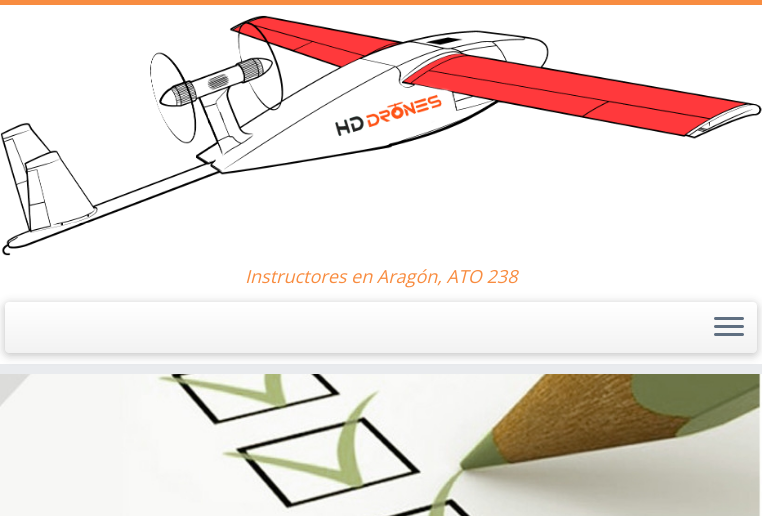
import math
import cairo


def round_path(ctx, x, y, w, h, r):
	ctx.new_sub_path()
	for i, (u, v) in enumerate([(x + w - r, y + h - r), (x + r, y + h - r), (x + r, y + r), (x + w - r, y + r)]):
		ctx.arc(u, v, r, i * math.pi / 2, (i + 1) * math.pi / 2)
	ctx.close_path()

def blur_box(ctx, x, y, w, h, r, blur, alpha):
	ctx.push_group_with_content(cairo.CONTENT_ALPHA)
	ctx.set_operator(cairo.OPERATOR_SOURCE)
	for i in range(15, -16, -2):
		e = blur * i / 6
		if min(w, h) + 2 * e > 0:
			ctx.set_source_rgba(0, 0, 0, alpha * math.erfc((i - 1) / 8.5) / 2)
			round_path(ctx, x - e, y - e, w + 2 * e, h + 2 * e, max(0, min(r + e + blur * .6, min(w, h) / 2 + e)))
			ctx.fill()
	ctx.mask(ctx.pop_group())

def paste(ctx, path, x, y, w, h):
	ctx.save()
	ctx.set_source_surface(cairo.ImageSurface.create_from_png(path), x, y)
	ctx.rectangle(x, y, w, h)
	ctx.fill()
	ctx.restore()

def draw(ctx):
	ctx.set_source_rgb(1, 1, 1)
	ctx.paint()
	ctx.set_source_rgb(0.969, 0.549, 0.251)
	ctx.rectangle(0, 0, 762, 5)
	ctx.fill()
	ctx.set_source_rgb(0.914, 0.918, 0.933)
	ctx.rectangle(0, 364, 762, 10)
	ctx.fill()
	paste(ctx, 'media/1.png', 0, 15, 762, 241)
	ctx.select_font_face('Open Sans', cairo.FONT_SLANT_ITALIC)
	ctx.set_font_size(18)
	ctx.set_source_rgb(0.969, 0.549, 0.251)
	ctx.move_to(245, 283)
	ctx.show_text('Instructores en Aragón, ATO 238')
	ctx.set_source_rgb(0, 0, 0)
	blur_box(ctx, 5, 304, 752, 51, 4, 5, 0.25)
	gradient = cairo.LinearGradient(381, 302, 381, 353)
	gradient.add_color_stop_rgba(0, 1, 1, 1, 1)
	gradient.add_color_stop_rgba(1, 0.949, 0.949, 0.949, 1)
	ctx.set_source(gradient)
	round_path(ctx, 5, 302, 752, 51, 4)
	ctx.fill()
	ctx.set_source_rgb(0.373, 0.435, 0.506)
	round_path(ctx, 714, 317, 30, 3, 1.5)
	ctx.fill()
	round_path(ctx, 714, 325, 30, 3, 1.5)
	ctx.fill()
	round_path(ctx, 714, 333, 30, 3, 1.5)
	ctx.fill()
	paste(ctx, 'media/2.png', 0, 374, 762, 142)


surface = cairo.ImageSurface(cairo.FORMAT_RGB24, 762, 516)
ctx = cairo.Context(surface)
options = cairo.FontOptions()
options.set_hint_metrics(cairo.HINT_METRICS_OFF)
options.set_hint_style(cairo.HINT_STYLE_NONE)
ctx.set_font_options(options)
ctx.set_miter_limit(4)
draw(ctx)
surface.write_to_png('image.png')
